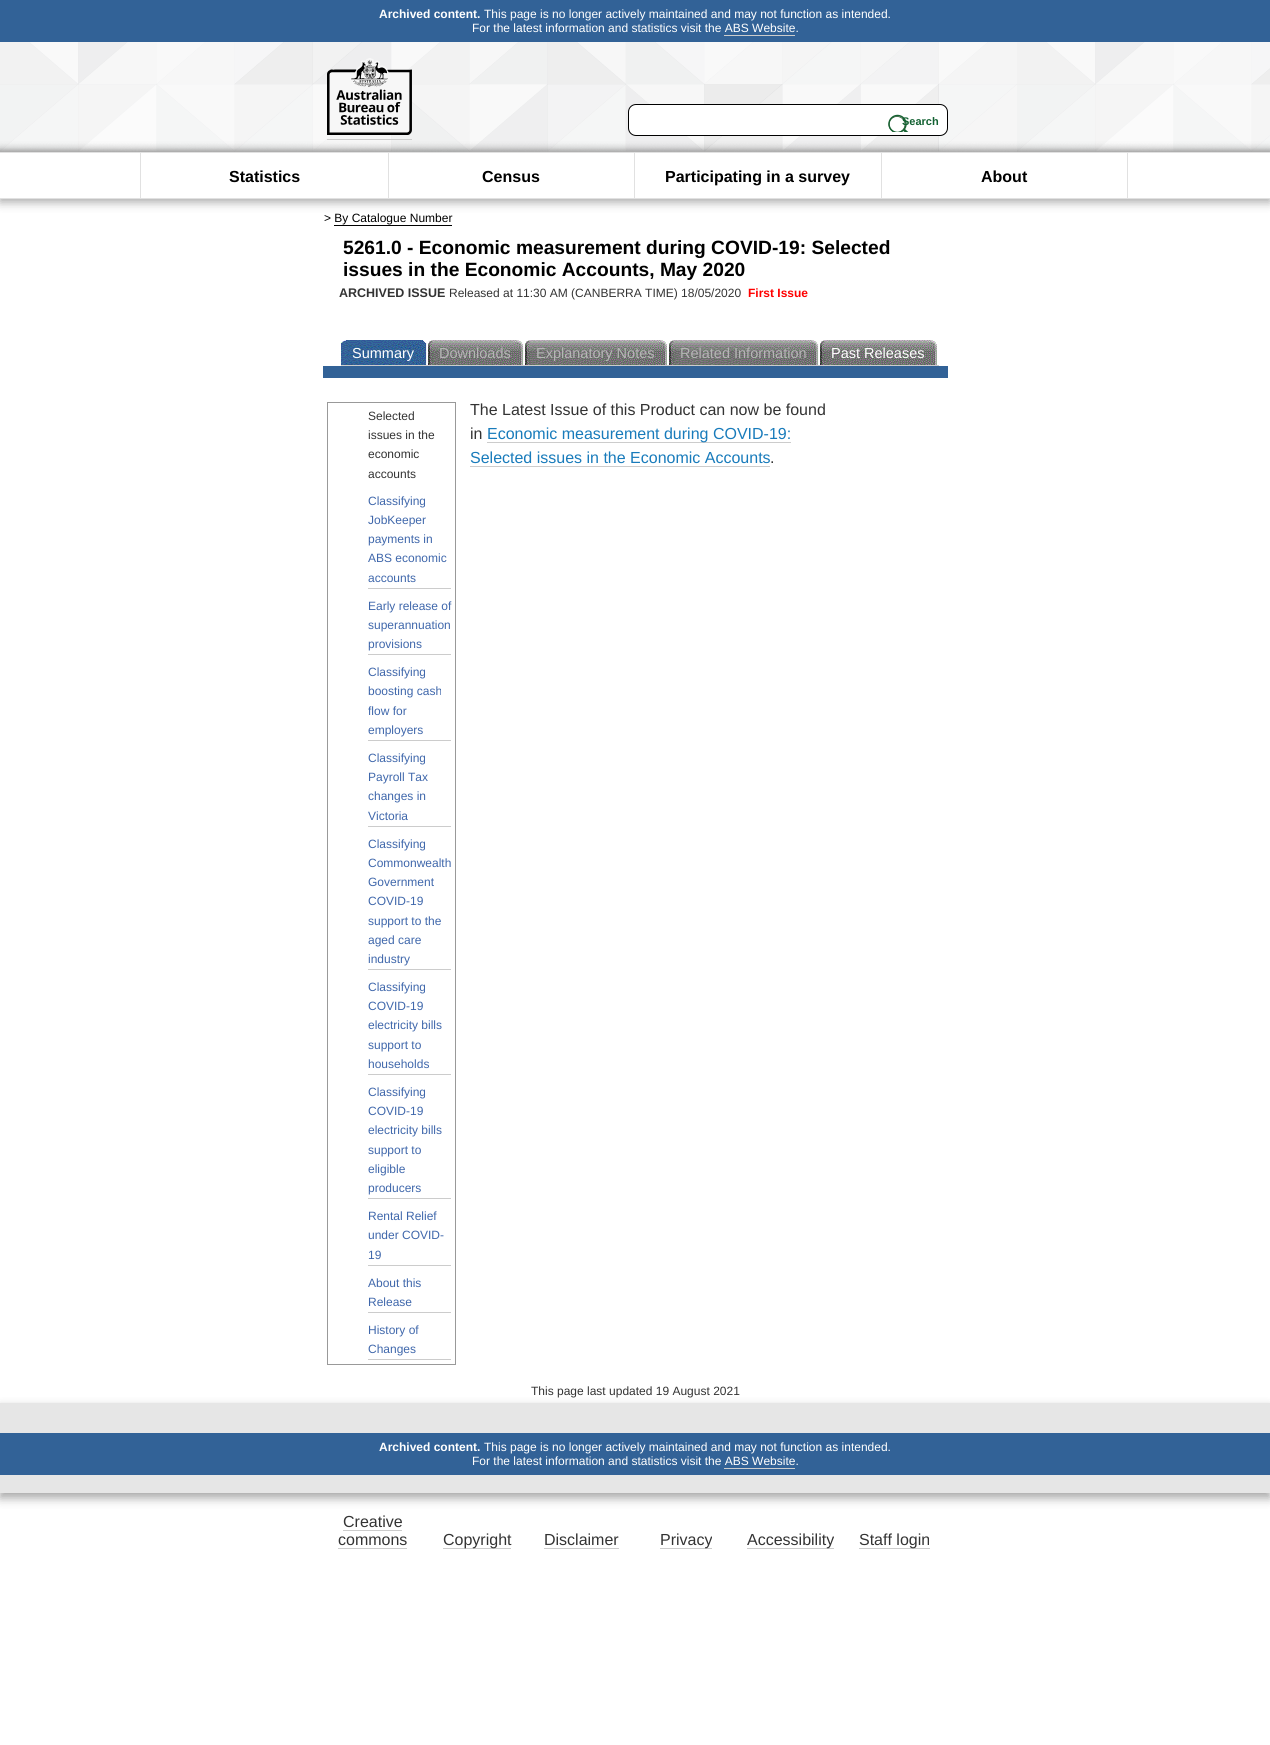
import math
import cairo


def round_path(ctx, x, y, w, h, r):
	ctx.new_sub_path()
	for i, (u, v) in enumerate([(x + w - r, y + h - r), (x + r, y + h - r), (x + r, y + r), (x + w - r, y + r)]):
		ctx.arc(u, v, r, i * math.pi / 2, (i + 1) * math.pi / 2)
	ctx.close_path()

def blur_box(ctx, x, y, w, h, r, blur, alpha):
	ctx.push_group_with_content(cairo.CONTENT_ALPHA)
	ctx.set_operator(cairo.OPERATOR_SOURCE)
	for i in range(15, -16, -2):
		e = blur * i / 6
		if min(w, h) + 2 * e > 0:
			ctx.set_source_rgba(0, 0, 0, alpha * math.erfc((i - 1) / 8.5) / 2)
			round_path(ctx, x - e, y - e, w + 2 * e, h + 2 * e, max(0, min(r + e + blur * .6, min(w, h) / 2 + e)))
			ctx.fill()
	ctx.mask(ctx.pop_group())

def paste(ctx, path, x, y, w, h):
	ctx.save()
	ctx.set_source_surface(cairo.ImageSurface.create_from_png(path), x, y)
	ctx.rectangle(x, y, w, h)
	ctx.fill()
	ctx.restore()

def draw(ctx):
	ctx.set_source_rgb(1, 1, 1)
	ctx.paint()
	ctx.set_source_rgb(0.196, 0.384, 0.592)
	ctx.rectangle(0, 0, 1270, 42)
	ctx.fill()
	ctx.select_font_face('Liberation Sans', cairo.FONT_SLANT_NORMAL, cairo.FONT_WEIGHT_BOLD)
	ctx.set_font_size(12)
	ctx.set_source_rgb(1, 1, 1)
	ctx.move_to(379, 18)
	ctx.show_text('Archived content.')
	ctx.select_font_face('Liberation Sans')
	ctx.move_to(484, 18)
	ctx.show_text('This page is no longer actively maintained and may not function as intended.')
	ctx.move_to(472, 32)
	ctx.show_text('For the latest information and statistics visit the ABS Website.')
	ctx.set_source_rgb(0.8, 0.8, 0.8)
	ctx.rectangle(724, 35, 71, 1)
	ctx.fill()
	paste(ctx, 'media/1.png', 0, 42, 1270, 110)
	ctx.save()
	ctx.set_fill_rule(cairo.FILL_RULE_EVEN_ODD)
	ctx.new_path()
	ctx.move_to(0, 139)
	ctx.line_to(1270, 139)
	ctx.line_to(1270, 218)
	ctx.line_to(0, 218)
	ctx.close_path()
	ctx.move_to(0, 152)
	ctx.line_to(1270, 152)
	ctx.line_to(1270, 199)
	ctx.line_to(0, 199)
	ctx.close_path()
	ctx.clip()
	ctx.set_source_rgb(0, 0, 0)
	blur_box(ctx, 0, 155, 1270, 47, 0, 5, 0.35)
	ctx.restore()
	ctx.rectangle(327, 139, 85, 1)
	ctx.fill()
	paste(ctx, 'media/2.png', 327, 58, 85, 77)
	ctx.set_source_rgb(1, 1, 1)
	round_path(ctx, 628.5, 104.5, 319, 31, 7.5)
	ctx.fill_preserve()
	ctx.set_source_rgb(0, 0, 0)
	ctx.set_line_width(1)
	ctx.stroke()
	paste(ctx, 'media/3.png', 888, 114, 21, 18)
	ctx.select_font_face('Liberation Sans', cairo.FONT_SLANT_NORMAL, cairo.FONT_WEIGHT_BOLD)
	ctx.set_font_size(11)
	ctx.set_source_rgb(0.078, 0.38, 0.196)
	ctx.move_to(902, 125)
	ctx.show_text('Search')
	ctx.set_source_rgb(0.882, 0.882, 0.882)
	ctx.rectangle(0, 152, 1270, 1)
	ctx.rectangle(0, 198, 1270, 1)
	ctx.rectangle(388, 153, 1, 45)
	ctx.rectangle(140, 153, 1, 45)
	ctx.fill()
	ctx.set_font_size(16)
	ctx.set_source_rgb(0, 0, 0)
	ctx.move_to(229, 182)
	ctx.show_text('Statistics')
	ctx.set_source_rgb(0.882, 0.882, 0.882)
	ctx.rectangle(634, 153, 1, 45)
	ctx.fill()
	ctx.set_source_rgb(0, 0, 0)
	ctx.move_to(482, 182)
	ctx.show_text('Census')
	ctx.set_source_rgb(0.882, 0.882, 0.882)
	ctx.rectangle(881, 153, 1, 45)
	ctx.fill()
	ctx.set_source_rgb(0, 0, 0)
	ctx.move_to(665, 182)
	ctx.show_text('Participating in a survey')
	ctx.set_source_rgb(0.882, 0.882, 0.882)
	ctx.rectangle(1127, 153, 1, 45)
	ctx.fill()
	ctx.set_source_rgb(0, 0, 0)
	ctx.move_to(981, 182)
	ctx.show_text('About')
	ctx.select_font_face('Liberation Sans')
	ctx.set_font_size(12)
	ctx.move_to(324, 222)
	ctx.show_text('> By Catalogue Number')
	ctx.rectangle(334, 225, 118, 1)
	ctx.fill()
	ctx.select_font_face('Liberation Sans', cairo.FONT_SLANT_NORMAL, cairo.FONT_WEIGHT_BOLD)
	ctx.set_font_size(19.2)
	ctx.move_to(343, 254)
	ctx.show_text('5261.0 - Economic measurement during COVID-19: Selected')
	ctx.move_to(343, 276)
	ctx.show_text('issues in the Economic Accounts, May 2020')
	ctx.set_font_size(12.5)
	ctx.set_source_rgb(0.2, 0.2, 0.2)
	ctx.move_to(339, 297)
	ctx.show_text('ARCHIVED ISSUE')
	ctx.select_font_face('Liberation Sans')
	ctx.set_font_size(12)
	ctx.move_to(449, 297)
	ctx.show_text('Released at 11:30 AM (CANBERRA TIME) 18/05/2020')
	ctx.select_font_face('Liberation Sans', cairo.FONT_SLANT_NORMAL, cairo.FONT_WEIGHT_BOLD)
	ctx.set_source_rgb(1, 0, 0)
	ctx.move_to(748, 297)
	ctx.show_text('First Issue')
	paste(ctx, 'media/4.png', 341, 340, 5, 25)
	ctx.set_source_rgb(0.8, 0.8, 0.8)
	ctx.rectangle(341, 365, 598, 1)
	ctx.fill()
	paste(ctx, 'media/5.png', 346, 340, 82, 25)
	ctx.select_font_face('Liberation Sans')
	ctx.set_font_size(14.5)
	ctx.set_source_rgb(1, 1, 1)
	ctx.move_to(352, 358)
	ctx.show_text('Summary')
	paste(ctx, 'media/6.png', 428, 340, 5, 25)
	paste(ctx, 'media/7.png', 433, 340, 92, 25)
	ctx.set_source_rgb(0.714, 0.714, 0.714)
	ctx.move_to(439, 358)
	ctx.show_text('Downloads')
	paste(ctx, 'media/6.png', 525, 340, 5, 25)
	paste(ctx, 'media/8.png', 530, 340, 139, 25)
	ctx.move_to(536, 358)
	ctx.show_text('Explanatory Notes')
	paste(ctx, 'media/6.png', 669, 340, 5, 25)
	paste(ctx, 'media/9.png', 674, 340, 146, 25)
	ctx.move_to(680, 358)
	ctx.show_text('Related Information')
	paste(ctx, 'media/6.png', 820, 340, 5, 25)
	paste(ctx, 'media/10.png', 825, 340, 114, 25)
	ctx.set_source_rgb(1, 1, 1)
	ctx.move_to(831, 358)
	ctx.show_text('Past Releases')
	ctx.set_source_rgb(0.196, 0.384, 0.592)
	ctx.rectangle(323, 366, 625, 12)
	ctx.fill()
	ctx.rectangle(327.5, 402.5, 128, 962)
	ctx.set_source_rgb(0.6, 0.6, 0.6)
	ctx.stroke()
	ctx.set_font_size(12)
	ctx.set_source_rgb(0.2, 0.2, 0.2)
	for x, y, s in [
		(368, 420, 'Selected'),
		(368, 439, 'issues in the'),
		(368, 458, 'economic'),
		(368, 478, 'accounts'),
	]:
		ctx.move_to(x, y)
		ctx.show_text(s)
	ctx.set_source_rgb(0.8, 0.8, 0.8)
	ctx.rectangle(368, 588, 83, 1)
	ctx.fill()
	ctx.set_source_rgb(0.247, 0.404, 0.671)
	for x, y, s in [
		(368, 505, 'Classifying'),
		(368, 524, 'JobKeeper'),
		(368, 543, 'payments in'),
		(368, 562, 'ABS economic'),
		(368, 582, 'accounts'),
	]:
		ctx.move_to(x, y)
		ctx.show_text(s)
	ctx.set_source_rgb(0.8, 0.8, 0.8)
	ctx.rectangle(368, 654, 83, 1)
	ctx.fill()
	ctx.set_source_rgb(0.247, 0.404, 0.671)
	for x, y, s in [
		(368, 610, 'Early release of'),
		(368, 629, 'superannuation'),
		(368, 648, 'provisions'),
	]:
		ctx.move_to(x, y)
		ctx.show_text(s)
	ctx.set_source_rgb(0.8, 0.8, 0.8)
	ctx.rectangle(368, 740, 83, 1)
	ctx.fill()
	ctx.set_source_rgb(0.247, 0.404, 0.671)
	for x, y, s in [
		(368, 676, 'Classifying'),
		(368, 695, 'boosting cash'),
		(368, 715, 'flow for'),
		(368, 734, 'employers'),
	]:
		ctx.move_to(x, y)
		ctx.show_text(s)
	ctx.set_source_rgb(0.8, 0.8, 0.8)
	ctx.rectangle(368, 826, 83, 1)
	ctx.fill()
	ctx.set_source_rgb(0.247, 0.404, 0.671)
	for x, y, s in [
		(368, 762, 'Classifying'),
		(368, 781, 'Payroll Tax'),
		(368, 800, 'changes in'),
		(368, 820, 'Victoria'),
	]:
		ctx.move_to(x, y)
		ctx.show_text(s)
	ctx.set_source_rgb(0.8, 0.8, 0.8)
	ctx.rectangle(368, 969, 83, 1)
	ctx.fill()
	ctx.set_source_rgb(0.247, 0.404, 0.671)
	for x, y, s in [
		(368, 848, 'Classifying'),
		(368, 867, 'Commonwealth'),
		(368, 886, 'Government'),
		(368, 905, 'COVID-19'),
		(368, 925, 'support to the'),
		(368, 944, 'aged care'),
		(368, 963, 'industry'),
	]:
		ctx.move_to(x, y)
		ctx.show_text(s)
	ctx.set_source_rgb(0.8, 0.8, 0.8)
	ctx.rectangle(368, 1074, 83, 1)
	ctx.fill()
	ctx.set_source_rgb(0.247, 0.404, 0.671)
	for x, y, s in [
		(368, 991, 'Classifying'),
		(368, 1010, 'COVID-19'),
		(368, 1029, 'electricity bills'),
		(368, 1049, 'support to'),
		(368, 1068, 'households'),
	]:
		ctx.move_to(x, y)
		ctx.show_text(s)
	ctx.set_source_rgb(0.8, 0.8, 0.8)
	ctx.rectangle(368, 1198, 83, 1)
	ctx.fill()
	ctx.set_source_rgb(0.247, 0.404, 0.671)
	for x, y, s in [
		(368, 1096, 'Classifying'),
		(368, 1115, 'COVID-19'),
		(368, 1134, 'electricity bills'),
		(368, 1154, 'support to'),
		(368, 1173, 'eligible'),
		(368, 1192, 'producers'),
	]:
		ctx.move_to(x, y)
		ctx.show_text(s)
	ctx.set_source_rgb(0.8, 0.8, 0.8)
	ctx.rectangle(368, 1265, 83, 1)
	ctx.fill()
	ctx.set_source_rgb(0.247, 0.404, 0.671)
	for x, y, s in [
		(368, 1220, 'Rental Relief'),
		(368, 1239, 'under COVID-'),
		(368, 1259, '19'),
	]:
		ctx.move_to(x, y)
		ctx.show_text(s)
	ctx.set_source_rgb(0.8, 0.8, 0.8)
	ctx.rectangle(368, 1312, 83, 1)
	ctx.fill()
	ctx.set_source_rgb(0.247, 0.404, 0.671)
	ctx.move_to(368, 1287)
	ctx.show_text('About this')
	ctx.move_to(368, 1306)
	ctx.show_text('Release')
	ctx.set_source_rgb(0.8, 0.8, 0.8)
	ctx.rectangle(368, 1359, 83, 1)
	ctx.fill()
	ctx.set_source_rgb(0.247, 0.404, 0.671)
	ctx.move_to(368, 1334)
	ctx.show_text('History of')
	ctx.move_to(368, 1353)
	ctx.show_text('Changes')
	ctx.set_font_size(16)
	ctx.set_source_rgb(0.2, 0.2, 0.2)
	ctx.move_to(470, 415)
	ctx.show_text('The Latest Issue of this Product can now be found')
	ctx.move_to(470, 439)
	ctx.show_text('in')
	ctx.set_source_rgb(0.8, 0.8, 0.8)
	ctx.rectangle(487, 442, 304, 1)
	ctx.fill()
	ctx.set_source_rgb(0.094, 0.482, 0.733)
	ctx.move_to(487, 439)
	ctx.show_text('Economic measurement during COVID-19:')
	ctx.move_to(470, 463)
	ctx.show_text('Selected issues in the Economic Accounts')
	ctx.set_source_rgb(0.8, 0.8, 0.8)
	ctx.rectangle(470, 466, 300, 1)
	ctx.fill()
	ctx.set_source_rgb(0.2, 0.2, 0.2)
	ctx.move_to(770, 463)
	ctx.show_text('.')
	ctx.set_source_rgb(0, 0, 0)
	blur_box(ctx, 0, 1408, 1270, 90, 0, 5, 0.35)
	ctx.set_font_size(12)
	ctx.set_source_rgb(0.2, 0.2, 0.2)
	ctx.move_to(531, 1395)
	ctx.show_text('This page last updated 19 August 2021')
	ctx.set_source_rgb(0.902, 0.902, 0.902)
	ctx.rectangle(0, 1403, 1270, 90)
	ctx.fill()
	ctx.set_source_rgb(0.196, 0.384, 0.592)
	ctx.rectangle(0, 1433, 1270, 42)
	ctx.fill()
	ctx.select_font_face('Liberation Sans', cairo.FONT_SLANT_NORMAL, cairo.FONT_WEIGHT_BOLD)
	ctx.set_source_rgb(1, 1, 1)
	ctx.move_to(379, 1451)
	ctx.show_text('Archived content.')
	ctx.select_font_face('Liberation Sans')
	ctx.move_to(484, 1451)
	ctx.show_text('This page is no longer actively maintained and may not function as intended.')
	ctx.move_to(472, 1465)
	ctx.show_text('For the latest information and statistics visit the ABS Website.')
	ctx.set_source_rgb(0.8, 0.8, 0.8)
	ctx.rectangle(724, 1468, 71, 1)
	ctx.fill()
	ctx.set_font_size(16)
	ctx.set_source_rgb(0.2, 0.2, 0.2)
	ctx.move_to(343, 1527)
	ctx.show_text('Creative')
	ctx.set_source_rgb(0.8, 0.8, 0.8)
	ctx.rectangle(343, 1530, 59, 1)
	ctx.fill()
	ctx.set_source_rgb(0.2, 0.2, 0.2)
	ctx.move_to(338, 1545)
	ctx.show_text('commons')
	ctx.set_source_rgb(0.8, 0.8, 0.8)
	ctx.rectangle(338, 1548, 69, 1)
	ctx.fill()
	ctx.rectangle(443, 1548, 68, 1)
	ctx.fill()
	ctx.set_source_rgb(0.2, 0.2, 0.2)
	ctx.move_to(443, 1545)
	ctx.show_text('Copyright')
	ctx.move_to(544, 1545)
	ctx.show_text('Disclaimer')
	ctx.set_source_rgb(0.8, 0.8, 0.8)
	ctx.rectangle(544, 1548, 75, 1)
	ctx.fill()
	ctx.rectangle(660, 1548, 52, 1)
	ctx.fill()
	ctx.set_source_rgb(0.2, 0.2, 0.2)
	ctx.move_to(660, 1545)
	ctx.show_text('Privacy')
	ctx.set_source_rgb(0.8, 0.8, 0.8)
	ctx.rectangle(747, 1548, 87, 1)
	ctx.fill()
	ctx.set_source_rgb(0.2, 0.2, 0.2)
	ctx.move_to(747, 1545)
	ctx.show_text('Accessibility')
	ctx.set_source_rgb(0.8, 0.8, 0.8)
	ctx.rectangle(859, 1548, 71, 1)
	ctx.fill()
	ctx.set_source_rgb(0.2, 0.2, 0.2)
	ctx.move_to(859, 1545)
	ctx.show_text('Staff login')


surface = cairo.ImageSurface(cairo.FORMAT_RGB24, 1270, 1745)
ctx = cairo.Context(surface)
options = cairo.FontOptions()
options.set_hint_metrics(cairo.HINT_METRICS_OFF)
options.set_hint_style(cairo.HINT_STYLE_NONE)
ctx.set_font_options(options)
ctx.set_miter_limit(4)
draw(ctx)
surface.write_to_png('image.png')
